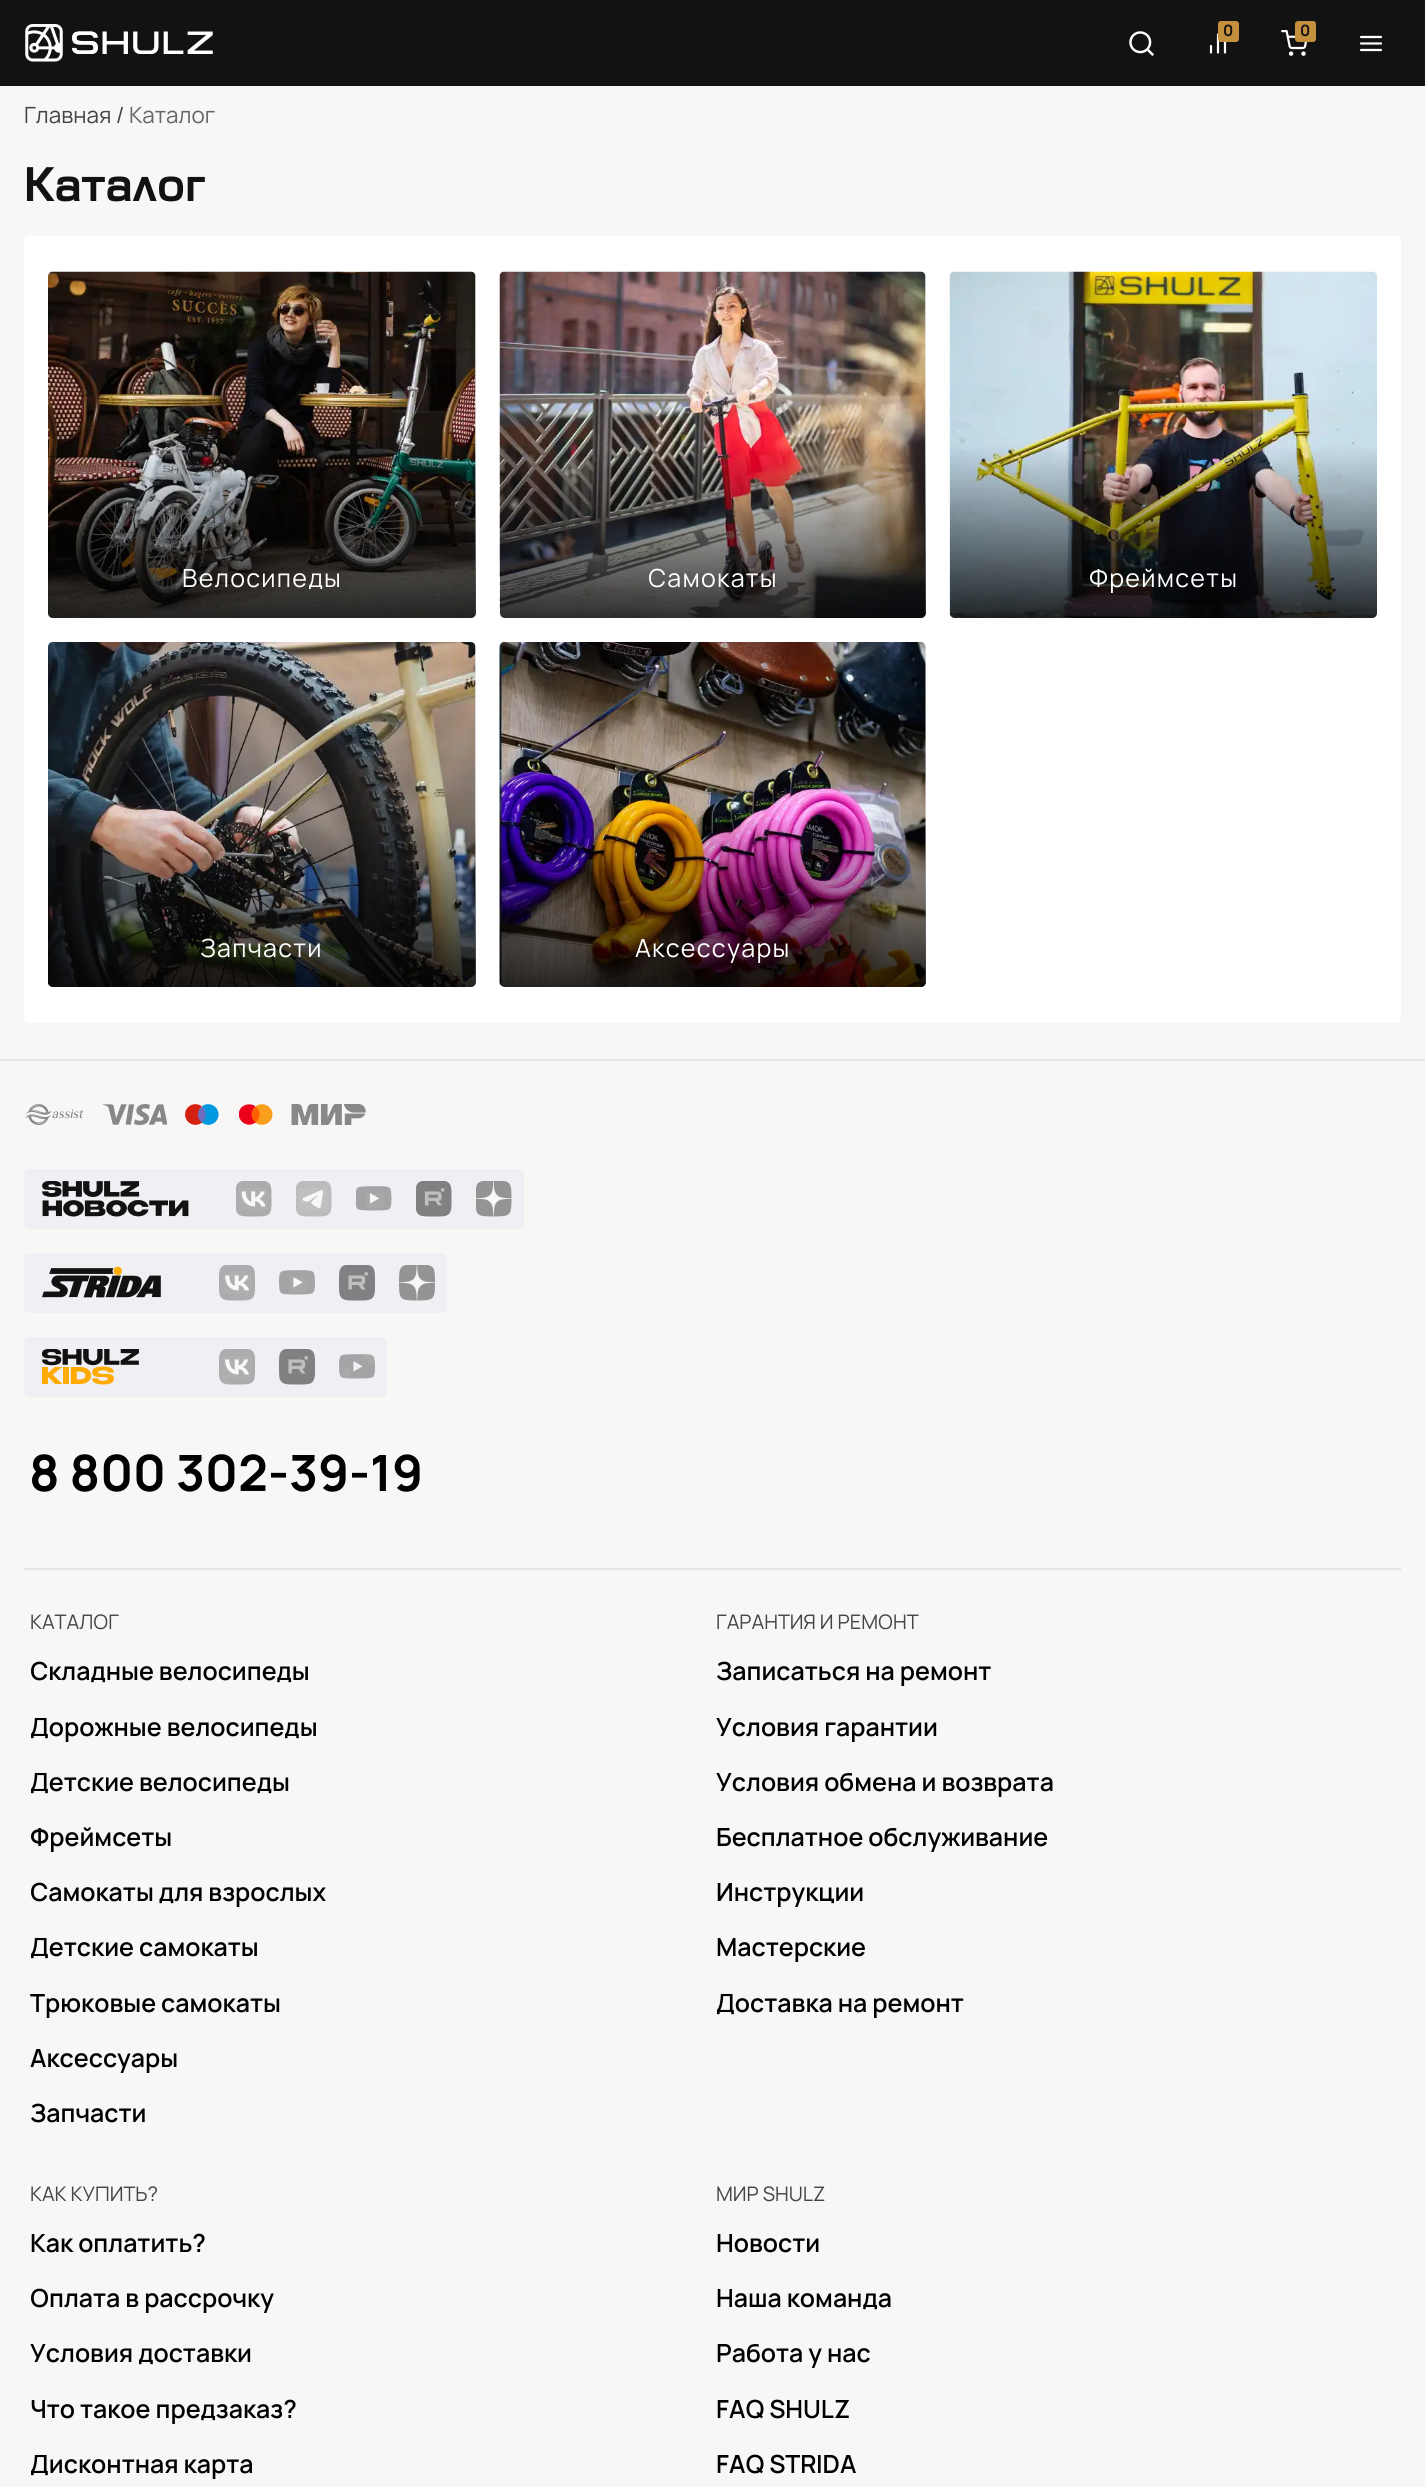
import math
import cairo


def write_spaced(ctx, x, y, s, letter, word):
	ctx.move_to(x, y)
	for ch in s:
		ctx.show_text(ch)
		ctx.rel_move_to(letter + word * (ch == ' '), 0)

def round_path(ctx, x, y, w, h, r):
	ctx.new_sub_path()
	for i, (u, v) in enumerate([(x + w - r, y + h - r), (x + r, y + h - r), (x + r, y + r), (x + w - r, y + r)]):
		ctx.arc(u, v, r, i * math.pi / 2, (i + 1) * math.pi / 2)
	ctx.close_path()

def paste(ctx, path, x, y, w, h):
	ctx.save()
	ctx.set_source_surface(cairo.ImageSurface.create_from_png(path), x, y)
	ctx.rectangle(x, y, w, h)
	ctx.fill()
	ctx.restore()

def draw(ctx):
	ctx.set_source_rgb(0.969, 0.965, 0.961)
	ctx.paint()
	ctx.set_source_rgb(0.071, 0.071, 0.071)
	ctx.rectangle(0, 0, 1425, 86)
	ctx.fill()
	paste(ctx, 'media/1.png', 25, 24, 188, 38)
	paste(ctx, 'media/2.png', 1129, 31, 25, 25)
	ctx.new_path()
	ctx.move_to(1225, 52.5)
	ctx.line_to(1225, 41)
	ctx.move_to(1218, 52.5)
	ctx.line_to(1218, 34.5)
	ctx.move_to(1211, 52.5)
	ctx.line_to(1211, 46)
	ctx.set_source_rgb(1, 1, 1)
	ctx.set_line_width(2.2)
	ctx.set_line_cap(cairo.LINE_CAP_ROUND)
	ctx.set_line_join(cairo.LINE_JOIN_ROUND)
	ctx.stroke()
	ctx.set_source_rgb(0.773, 0.565, 0.243)
	round_path(ctx, 1218, 21, 21, 21, 3)
	ctx.fill()
	ctx.select_font_face('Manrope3', cairo.FONT_SLANT_NORMAL, cairo.FONT_WEIGHT_BOLD)
	ctx.set_font_size(15)
	ctx.set_source_rgb(0.071, 0.071, 0.071)
	ctx.move_to(1223, 36)
	ctx.show_text('0')
	paste(ctx, 'media/3.png', 1281, 30, 26, 26)
	ctx.set_source_rgb(0.773, 0.565, 0.243)
	round_path(ctx, 1295, 21, 21, 21, 3)
	ctx.fill()
	ctx.set_source_rgb(0.071, 0.071, 0.071)
	ctx.move_to(1300, 36)
	ctx.show_text('0')
	ctx.new_path()
	ctx.move_to(1361, 43.5)
	ctx.line_to(1381, 43.5)
	ctx.move_to(1361, 37)
	ctx.line_to(1381, 37)
	ctx.move_to(1361, 50)
	ctx.line_to(1381, 50)
	ctx.set_source_rgb(1, 1, 1)
	ctx.stroke()
	ctx.select_font_face('Manrope3')
	ctx.set_font_size(21.5)
	ctx.set_source_rgb(0.267, 0.267, 0.267)
	ctx.move_to(24, 123)
	ctx.show_text('Главная /')
	ctx.set_source_rgb(0.4, 0.4, 0.4)
	ctx.move_to(129, 123)
	ctx.show_text('Каталог')
	ctx.select_font_face('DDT', cairo.FONT_SLANT_NORMAL, cairo.FONT_WEIGHT_BOLD)
	ctx.set_font_size(43)
	ctx.set_source_rgb(0.071, 0.071, 0.071)
	ctx.move_to(24, 201)
	ctx.show_text('Каталог')
	ctx.set_source_rgb(1, 1, 1)
	round_path(ctx, 24, 236, 1377, 787, 5)
	ctx.fill()
	ctx.set_source_rgb(0.941, 0.941, 0.957)
	round_path(ctx, 48, 272, 428, 346, 5)
	ctx.fill()
	paste(ctx, 'media/4.png', 48, 271, 428, 347)
	gradient = cairo.LinearGradient(262, 618, 262, 272)
	gradient.add_color_stop_rgba(0, 0, 0, 0, 0.8)
	gradient.add_color_stop_rgba(0.5, 0, 0, 0, 0)
	ctx.set_source(gradient)
	round_path(ctx, 48, 272, 428, 346, 5)
	ctx.fill()
	ctx.select_font_face('Manrope3')
	ctx.set_font_size(24)
	ctx.set_source_rgb(1, 1, 1)
	write_spaced(ctx, 182, 587, 'Велосипеды', 1.25, 0)
	ctx.set_source_rgb(0.941, 0.941, 0.957)
	round_path(ctx, 500, 272, 426, 346, 5)
	ctx.fill()
	paste(ctx, 'media/5.png', 499, 271, 427, 347)
	gradient = cairo.LinearGradient(713, 618, 713, 272)
	gradient.add_color_stop_rgba(0, 0, 0, 0, 0.8)
	gradient.add_color_stop_rgba(0.5, 0, 0, 0, 0)
	ctx.set_source(gradient)
	round_path(ctx, 500, 272, 426, 346, 5)
	ctx.fill()
	ctx.set_source_rgb(1, 1, 1)
	write_spaced(ctx, 648, 587, 'Самокаты', 1.25, 0)
	paste(ctx, 'media/6.png', 949, 271, 428, 347)
	gradient = cairo.LinearGradient(1163, 618, 1163, 272)
	gradient.add_color_stop_rgba(0, 0, 0, 0, 0.8)
	gradient.add_color_stop_rgba(0.5, 0, 0, 0, 0)
	ctx.set_source(gradient)
	round_path(ctx, 950, 272, 427, 346, 5)
	ctx.fill()
	ctx.set_source_rgb(1, 1, 1)
	write_spaced(ctx, 1089, 587, 'Фреймсеты', 1.25, 0)
	ctx.set_source_rgb(0.941, 0.941, 0.957)
	round_path(ctx, 48, 642, 428, 345, 5)
	ctx.fill()
	paste(ctx, 'media/7.png', 48, 642, 428, 345)
	gradient = cairo.LinearGradient(262, 987, 262, 642)
	gradient.add_color_stop_rgba(0, 0, 0, 0, 0.8)
	gradient.add_color_stop_rgba(0.5, 0, 0, 0, 0)
	ctx.set_source(gradient)
	round_path(ctx, 48, 642, 428, 345, 5)
	ctx.fill()
	ctx.set_source_rgb(1, 1, 1)
	write_spaced(ctx, 200, 957, 'Запчасти', 1.25, 0)
	ctx.set_source_rgb(0.941, 0.941, 0.957)
	round_path(ctx, 500, 642, 426, 345, 5)
	ctx.fill()
	paste(ctx, 'media/8.png', 499, 642, 427, 345)
	gradient = cairo.LinearGradient(713, 987, 713, 642)
	gradient.add_color_stop_rgba(0, 0, 0, 0, 0.8)
	gradient.add_color_stop_rgba(0.5, 0, 0, 0, 0)
	ctx.set_source(gradient)
	round_path(ctx, 500, 642, 426, 345, 5)
	ctx.fill()
	ctx.set_source_rgb(1, 1, 1)
	write_spaced(ctx, 635, 957, 'Аксессуары', 1.25, 0)
	ctx.set_source_rgb(0.89, 0.894, 0.906)
	ctx.rectangle(0, 1059, 1425, 2)
	ctx.fill()
	paste(ctx, 'media/9.png', 25, 1104, 59, 21)
	paste(ctx, 'media/10.png', 102, 1104, 65, 21)
	paste(ctx, 'media/11.png', 185, 1104, 34, 21)
	ctx.set_source_rgb(1, 0.373, 0)
	ctx.rectangle(251, 1107, 9, 16)
	ctx.fill()
	ctx.save()
	ctx.rectangle(239, 1104, 34, 21)
	ctx.clip()
	ctx.set_source_rgb(0.922, 0, 0.106)
	ctx.set_fill_rule(cairo.FILL_RULE_EVEN_ODD)
	ctx.new_path()
	ctx.move_to(251.5, 1114.5)
	ctx.curve_to(251.5, 1111, 253, 1108, 255.5, 1106.5)
	ctx.curve_to(253.5, 1104.5, 250, 1104, 247, 1104.5)
	ctx.curve_to(244.5, 1105, 242, 1106.5, 240.5, 1108.5)
	ctx.curve_to(234, 1118.5, 246.5, 1129.5, 255.5, 1122.5)
	ctx.curve_to(253, 1120.5, 251.5, 1118, 251.5, 1114.5)
	ctx.close_path()
	ctx.fill()
	ctx.restore()
	ctx.set_source_rgb(0.969, 0.62, 0.106)
	ctx.set_fill_rule(cairo.FILL_RULE_EVEN_ODD)
	ctx.new_path()
	ctx.move_to(272.5, 1114.5)
	ctx.curve_to(272.5, 1123, 262, 1128, 255.5, 1122.5)
	ctx.curve_to(261, 1118.5, 261, 1110.5, 255.5, 1106.5)
	ctx.curve_to(262, 1101, 272.5, 1106, 272.5, 1114.5)
	ctx.close_path()
	ctx.fill()
	paste(ctx, 'media/12.png', 291, 1104, 75, 21)
	ctx.set_source_rgb(0.941, 0.941, 0.957)
	round_path(ctx, 24, 1169, 500, 60, 5)
	ctx.fill()
	paste(ctx, 'media/13.png', 42, 1181, 147, 36)
	paste(ctx, 'media/14.png', 236, 1181, 36, 36)
	paste(ctx, 'media/15.png', 296, 1181, 36, 36)
	paste(ctx, 'media/16.png', 356, 1186, 36, 25)
	paste(ctx, 'media/17.png', 416, 1181, 36, 36)
	paste(ctx, 'media/18.png', 476, 1181, 36, 36)
	round_path(ctx, 24, 1253, 423, 60, 5)
	ctx.fill()
	paste(ctx, 'media/19.png', 42, 1266, 119, 32)
	paste(ctx, 'media/20.png', 219, 1265, 36, 36)
	paste(ctx, 'media/21.png', 279, 1270, 36, 25)
	paste(ctx, 'media/22.png', 339, 1265, 36, 36)
	paste(ctx, 'media/23.png', 399, 1265, 36, 36)
	round_path(ctx, 24, 1337, 363, 60, 5)
	ctx.fill()
	paste(ctx, 'media/24.png', 42, 1349, 97, 36)
	paste(ctx, 'media/25.png', 219, 1349, 36, 36)
	paste(ctx, 'media/22.png', 279, 1349, 36, 36)
	paste(ctx, 'media/26.png', 339, 1354, 36, 25)
	ctx.select_font_face('Manrope3', cairo.FONT_SLANT_NORMAL, cairo.FONT_WEIGHT_BOLD)
	ctx.set_font_size(48)
	ctx.set_source_rgb(0, 0, 0)
	ctx.move_to(29, 1491)
	ctx.show_text('8 800 302-39-19')
	ctx.set_source_rgb(0.89, 0.894, 0.906)
	ctx.rectangle(24, 1568, 1377, 2)
	ctx.fill()
	ctx.select_font_face('Manrope3')
	ctx.set_font_size(19.25)
	ctx.set_source_rgb(0.267, 0.267, 0.267)
	ctx.move_to(30, 1629)
	ctx.show_text('КАТАЛОГ')
	ctx.select_font_face('Manrope3 SemiBold')
	ctx.set_font_size(24)
	ctx.set_source_rgb(0, 0, 0)
	for x, y, s in [
		(30, 1680, 'Складные велосипеды'),
		(30, 1736, 'Дорожные велосипеды'),
		(30, 1791, 'Детские велосипеды'),
		(30, 1846, 'Фреймсеты'),
		(30, 1901, 'Самокаты для взрослых'),
		(30, 1956, 'Детские самокаты'),
		(30, 2012, 'Трюковые самокаты'),
		(30, 2067, 'Аксессуары'),
		(30, 2122, 'Запчасти'),
	]:
		ctx.move_to(x, y)
		ctx.show_text(s)
	ctx.select_font_face('Manrope3')
	ctx.set_font_size(19.25)
	ctx.set_source_rgb(0.267, 0.267, 0.267)
	ctx.move_to(716, 1629)
	ctx.show_text('ГАРАНТИЯ И РЕМОНТ')
	ctx.select_font_face('Manrope3 SemiBold')
	ctx.set_font_size(24)
	ctx.set_source_rgb(0, 0, 0)
	for x, y, s in [
		(716, 1680, 'Записаться на ремонт'),
		(716, 1736, 'Условия гарантии'),
		(716, 1791, 'Условия обмена и возврата'),
		(716, 1846, 'Бесплатное обслуживание'),
		(716, 1901, 'Инструкции'),
		(716, 1956, 'Mастерские'),
		(716, 2012, 'Доставка на ремонт'),
	]:
		ctx.move_to(x, y)
		ctx.show_text(s)
	ctx.select_font_face('Manrope3')
	ctx.set_font_size(19.25)
	ctx.set_source_rgb(0.267, 0.267, 0.267)
	ctx.move_to(30, 2201)
	ctx.show_text('КАК КУПИТЬ?')
	ctx.select_font_face('Manrope3 SemiBold')
	ctx.set_font_size(24)
	ctx.set_source_rgb(0, 0, 0)
	for x, y, s in [
		(30, 2252, 'Как оплатить?'),
		(30, 2307, 'Оплата в рассрочку'),
		(30, 2362, 'Условия доставки'),
		(30, 2418, 'Что такое предзаказ?'),
		(30, 2473, 'Дисконтная карта'),
	]:
		ctx.move_to(x, y)
		ctx.show_text(s)
	ctx.select_font_face('Manrope3')
	ctx.set_font_size(19.25)
	ctx.set_source_rgb(0.267, 0.267, 0.267)
	ctx.move_to(716, 2201)
	ctx.show_text('МИР SHULZ')
	ctx.select_font_face('Manrope3 SemiBold')
	ctx.set_font_size(24)
	ctx.set_source_rgb(0, 0, 0)
	for x, y, s in [
		(716, 2252, 'Новости'),
		(716, 2307, 'Наша команда'),
		(716, 2362, 'Работа у нас'),
		(716, 2418, 'FAQ SHULZ'),
		(716, 2473, 'FAQ STRIDA'),
	]:
		ctx.move_to(x, y)
		ctx.show_text(s)


surface = cairo.ImageSurface(cairo.FORMAT_RGB24, 1425, 2487)
ctx = cairo.Context(surface)
options = cairo.FontOptions()
options.set_hint_metrics(cairo.HINT_METRICS_OFF)
options.set_hint_style(cairo.HINT_STYLE_NONE)
ctx.set_font_options(options)
ctx.set_miter_limit(4)
draw(ctx)
surface.write_to_png('image.png')
